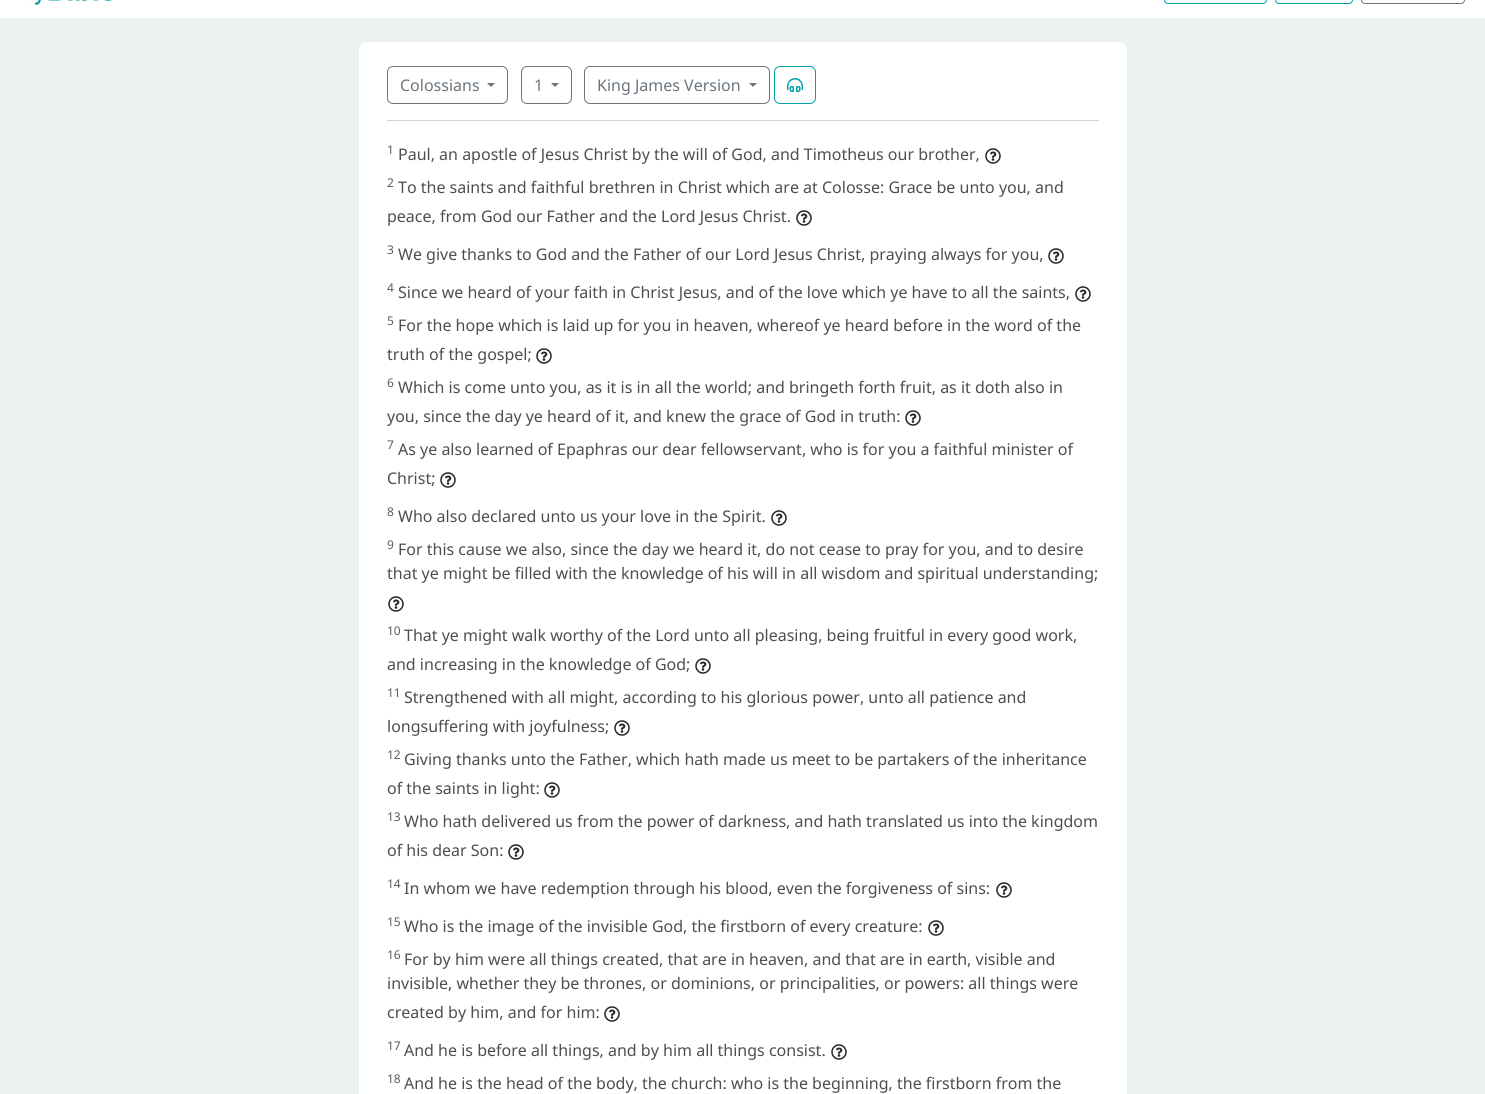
import math
import cairo


def round_path(ctx, x, y, w, h, r):
	ctx.new_sub_path()
	for i, (u, v) in enumerate([(x + w - r, y + h - r), (x + r, y + h - r), (x + r, y + r), (x + w - r, y + r)]):
		ctx.arc(u, v, r, i * math.pi / 2, (i + 1) * math.pi / 2)
	ctx.close_path()

def paste(ctx, path, x, y, w, h):
	ctx.save()
	ctx.set_source_surface(cairo.ImageSurface.create_from_png(path), x, y)
	ctx.rectangle(x, y, w, h)
	ctx.fill()
	ctx.restore()

def draw(ctx):
	ctx.set_source_rgb(0.925, 0.945, 0.945)
	ctx.paint()
	ctx.set_source_rgb(1, 1, 1)
	ctx.rectangle(0, 0, 1485, 18)
	ctx.fill()
	paste(ctx, 'media/1.png', 24, 0, 88, 5)
	round_path(ctx, 1164.5, -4.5, 102, 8, 3.5)
	ctx.set_source_rgb(0, 0.627, 0.655)
	ctx.set_line_width(1)
	ctx.stroke()
	round_path(ctx, 1275.5, -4.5, 77, 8, 3.5)
	ctx.stroke()
	round_path(ctx, 1361.5, -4.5, 103, 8, 3.5)
	ctx.set_source_rgb(0.424, 0.459, 0.49)
	ctx.stroke()
	ctx.set_source_rgb(1, 1, 1)
	round_path(ctx, 359, 42, 768, 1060, 8)
	ctx.fill()
	round_path(ctx, 387.5, 66.5, 120, 37, 5.5)
	ctx.set_source_rgb(0.424, 0.459, 0.49)
	ctx.stroke()
	ctx.select_font_face('Noto Sans')
	ctx.set_font_size(16)
	ctx.move_to(400, 91)
	ctx.show_text('Colossians')
	ctx.new_path()
	ctx.move_to(487, 83)
	ctx.line_to(495, 83)
	ctx.line_to(491, 87)
	ctx.close_path()
	ctx.fill()
	round_path(ctx, 521.5, 66.5, 50, 37, 5.5)
	ctx.stroke()
	ctx.move_to(534, 91)
	ctx.show_text('1')
	ctx.new_path()
	ctx.move_to(551, 83)
	ctx.line_to(559, 83)
	ctx.line_to(555, 87)
	ctx.close_path()
	ctx.fill()
	round_path(ctx, 584.5, 66.5, 185, 37, 5.5)
	ctx.stroke()
	ctx.move_to(597, 91)
	ctx.show_text('King James Version')
	ctx.new_path()
	ctx.move_to(749, 83)
	ctx.line_to(757, 83)
	ctx.line_to(753, 87)
	ctx.close_path()
	ctx.fill()
	round_path(ctx, 774.5, 66.5, 41, 37, 5.5)
	ctx.set_source_rgb(0, 0.627, 0.655)
	ctx.stroke()
	paste(ctx, 'media/2.png', 787, 78, 16, 14)
	ctx.set_source_rgb(0.827, 0.827, 0.827)
	ctx.rectangle(387, 120, 712, 1)
	ctx.fill()
	ctx.set_font_size(12)
	ctx.set_source_rgb(0.349, 0.361, 0.373)
	ctx.move_to(387, 154)
	ctx.show_text('1')
	ctx.set_font_size(16)
	ctx.set_source_rgb(0.31, 0.306, 0.306)
	ctx.move_to(398, 160)
	ctx.show_text('Paul, an apostle of Jesus Christ by the will of God, and Timotheus our brother,')
	paste(ctx, 'media/3.png', 985, 148, 16, 16)
	ctx.set_font_size(12)
	ctx.set_source_rgb(0.349, 0.361, 0.373)
	ctx.move_to(387, 187)
	ctx.show_text('2')
	ctx.set_font_size(16)
	ctx.set_source_rgb(0.31, 0.306, 0.306)
	ctx.move_to(398, 193)
	ctx.show_text('To the saints and faithful brethren in Christ which are at Colosse: Grace be unto you, and')
	ctx.move_to(387, 222)
	ctx.show_text('peace, from God our Father and the Lord Jesus Christ.')
	paste(ctx, 'media/3.png', 796, 210, 16, 16)
	ctx.set_font_size(12)
	ctx.set_source_rgb(0.349, 0.361, 0.373)
	ctx.move_to(387, 254)
	ctx.show_text('3')
	ctx.set_font_size(16)
	ctx.set_source_rgb(0.31, 0.306, 0.306)
	ctx.move_to(398, 260)
	ctx.show_text('We give thanks to God and the Father of our Lord Jesus Christ, praying always for you,')
	paste(ctx, 'media/3.png', 1048, 248, 16, 16)
	ctx.set_font_size(12)
	ctx.set_source_rgb(0.349, 0.361, 0.373)
	ctx.move_to(387, 292)
	ctx.show_text('4')
	ctx.set_font_size(16)
	ctx.set_source_rgb(0.31, 0.306, 0.306)
	ctx.move_to(398, 298)
	ctx.show_text('Since we heard of your faith in Christ Jesus, and of the love which ye have to all the saints,')
	paste(ctx, 'media/3.png', 1075, 286, 16, 16)
	ctx.set_font_size(12)
	ctx.set_source_rgb(0.349, 0.361, 0.373)
	ctx.move_to(387, 325)
	ctx.show_text('5')
	ctx.set_font_size(16)
	ctx.set_source_rgb(0.31, 0.306, 0.306)
	ctx.move_to(398, 331)
	ctx.show_text('For the hope which is laid up for you in heaven, whereof ye heard before in the word of the')
	ctx.move_to(387, 360)
	ctx.show_text('truth of the gospel;')
	paste(ctx, 'media/3.png', 536, 348, 16, 16)
	ctx.set_font_size(12)
	ctx.set_source_rgb(0.349, 0.361, 0.373)
	ctx.move_to(387, 387)
	ctx.show_text('6')
	ctx.set_font_size(16)
	ctx.set_source_rgb(0.31, 0.306, 0.306)
	ctx.move_to(398, 393)
	ctx.show_text('Which is come unto you, as it is in all the world; and bringeth forth fruit, as it doth also in')
	ctx.move_to(387, 422)
	ctx.show_text('you, since the day ye heard of it, and knew the grace of God in truth:')
	paste(ctx, 'media/3.png', 905, 410, 16, 16)
	ctx.set_font_size(12)
	ctx.set_source_rgb(0.349, 0.361, 0.373)
	ctx.move_to(387, 449)
	ctx.show_text('7')
	ctx.set_font_size(16)
	ctx.set_source_rgb(0.31, 0.306, 0.306)
	ctx.move_to(398, 455)
	ctx.show_text('As ye also learned of Epaphras our dear fellowservant, who is for you a faithful minister of')
	ctx.move_to(387, 484)
	ctx.show_text('Christ;')
	paste(ctx, 'media/3.png', 440, 472, 16, 16)
	ctx.set_font_size(12)
	ctx.set_source_rgb(0.349, 0.361, 0.373)
	ctx.move_to(387, 516)
	ctx.show_text('8')
	ctx.set_font_size(16)
	ctx.set_source_rgb(0.31, 0.306, 0.306)
	ctx.move_to(398, 522)
	ctx.show_text('Who also declared unto us your love in the Spirit.')
	paste(ctx, 'media/3.png', 771, 510, 16, 16)
	ctx.set_font_size(12)
	ctx.set_source_rgb(0.349, 0.361, 0.373)
	ctx.move_to(387, 549)
	ctx.show_text('9')
	ctx.set_font_size(16)
	ctx.set_source_rgb(0.31, 0.306, 0.306)
	ctx.move_to(398, 555)
	ctx.show_text('For this cause we also, since the day we heard it, do not cease to pray for you, and to desire')
	ctx.move_to(387, 579)
	ctx.show_text('that ye might be filled with the knowledge of his will in all wisdom and spiritual understanding;')
	paste(ctx, 'media/3.png', 388, 596, 16, 16)
	ctx.set_font_size(12)
	ctx.set_source_rgb(0.349, 0.361, 0.373)
	ctx.move_to(387, 635)
	ctx.show_text('10')
	ctx.set_font_size(16)
	ctx.set_source_rgb(0.31, 0.306, 0.306)
	ctx.move_to(404, 641)
	ctx.show_text('That ye might walk worthy of the Lord unto all pleasing, being fruitful in every good work,')
	ctx.move_to(387, 670)
	ctx.show_text('and increasing in the knowledge of God;')
	paste(ctx, 'media/3.png', 695, 658, 16, 16)
	ctx.set_font_size(12)
	ctx.set_source_rgb(0.349, 0.361, 0.373)
	ctx.move_to(387, 697)
	ctx.show_text('11')
	ctx.set_font_size(16)
	ctx.set_source_rgb(0.31, 0.306, 0.306)
	ctx.move_to(404, 703)
	ctx.show_text('Strengthened with all might, according to his glorious power, unto all patience and')
	ctx.move_to(387, 732)
	ctx.show_text('longsuffering with joyfulness;')
	paste(ctx, 'media/3.png', 614, 720, 16, 16)
	ctx.set_font_size(12)
	ctx.set_source_rgb(0.349, 0.361, 0.373)
	ctx.move_to(387, 759)
	ctx.show_text('12')
	ctx.set_font_size(16)
	ctx.set_source_rgb(0.31, 0.306, 0.306)
	ctx.move_to(404, 765)
	ctx.show_text('Giving thanks unto the Father, which hath made us meet to be partakers of the inheritance')
	ctx.move_to(387, 794)
	ctx.show_text('of the saints in light:')
	paste(ctx, 'media/3.png', 544, 782, 16, 16)
	ctx.set_font_size(12)
	ctx.set_source_rgb(0.349, 0.361, 0.373)
	ctx.move_to(387, 821)
	ctx.show_text('13')
	ctx.set_font_size(16)
	ctx.set_source_rgb(0.31, 0.306, 0.306)
	ctx.move_to(404, 827)
	ctx.show_text('Who hath delivered us from the power of darkness, and hath translated us into the kingdom')
	ctx.move_to(387, 856)
	ctx.show_text('of his dear Son:')
	paste(ctx, 'media/3.png', 508, 844, 16, 16)
	ctx.set_font_size(12)
	ctx.set_source_rgb(0.349, 0.361, 0.373)
	ctx.move_to(387, 888)
	ctx.show_text('14')
	ctx.set_font_size(16)
	ctx.set_source_rgb(0.31, 0.306, 0.306)
	ctx.move_to(404, 894)
	ctx.show_text('In whom we have redemption through his blood, even the forgiveness of sins:')
	paste(ctx, 'media/3.png', 996, 882, 16, 16)
	ctx.set_font_size(12)
	ctx.set_source_rgb(0.349, 0.361, 0.373)
	ctx.move_to(387, 926)
	ctx.show_text('15')
	ctx.set_font_size(16)
	ctx.set_source_rgb(0.31, 0.306, 0.306)
	ctx.move_to(404, 932)
	ctx.show_text('Who is the image of the invisible God, the firstborn of every creature:')
	paste(ctx, 'media/3.png', 928, 920, 16, 16)
	ctx.set_font_size(12)
	ctx.set_source_rgb(0.349, 0.361, 0.373)
	ctx.move_to(387, 959)
	ctx.show_text('16')
	ctx.set_font_size(16)
	ctx.set_source_rgb(0.31, 0.306, 0.306)
	for x, y, s in [
		(404, 965, 'For by him were all things created, that are in heaven, and that are in earth, visible and'),
		(387, 989, 'invisible, whether they be thrones, or dominions, or principalities, or powers: all things were'),
		(387, 1018, 'created by him, and for him:'),
	]:
		ctx.move_to(x, y)
		ctx.show_text(s)
	paste(ctx, 'media/3.png', 604, 1006, 16, 16)
	ctx.set_font_size(12)
	ctx.set_source_rgb(0.349, 0.361, 0.373)
	ctx.move_to(387, 1050)
	ctx.show_text('17')
	ctx.set_font_size(16)
	ctx.set_source_rgb(0.31, 0.306, 0.306)
	ctx.move_to(404, 1056)
	ctx.show_text('And he is before all things, and by him all things consist.')
	paste(ctx, 'media/3.png', 831, 1044, 16, 16)
	ctx.set_font_size(12)
	ctx.set_source_rgb(0.349, 0.361, 0.373)
	ctx.move_to(387, 1083)
	ctx.show_text('18')
	ctx.set_font_size(16)
	ctx.set_source_rgb(0.31, 0.306, 0.306)
	ctx.move_to(404, 1089)
	ctx.show_text('And he is the head of the body, the church: who is the beginning, the firstborn from the')


surface = cairo.ImageSurface(cairo.FORMAT_RGB24, 1485, 1094)
ctx = cairo.Context(surface)
options = cairo.FontOptions()
options.set_hint_metrics(cairo.HINT_METRICS_OFF)
options.set_hint_style(cairo.HINT_STYLE_NONE)
ctx.set_font_options(options)
ctx.set_miter_limit(4)
draw(ctx)
surface.write_to_png('image.png')
